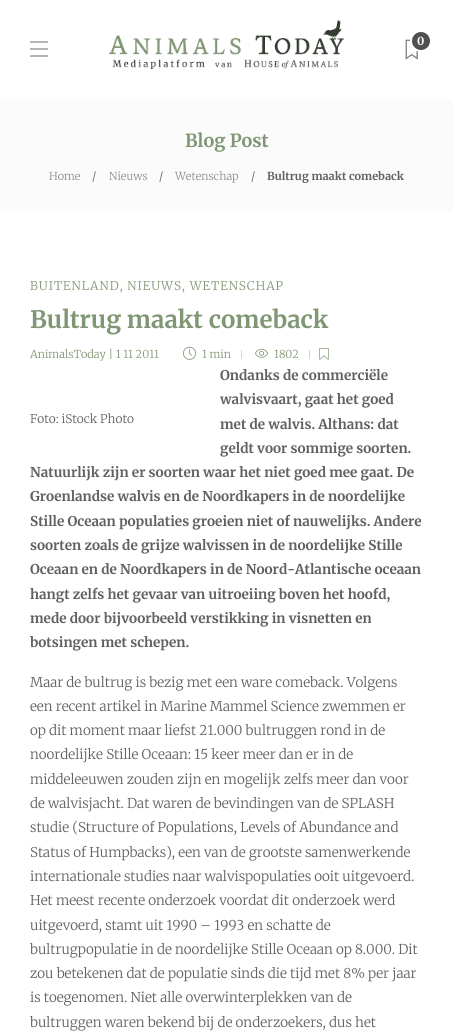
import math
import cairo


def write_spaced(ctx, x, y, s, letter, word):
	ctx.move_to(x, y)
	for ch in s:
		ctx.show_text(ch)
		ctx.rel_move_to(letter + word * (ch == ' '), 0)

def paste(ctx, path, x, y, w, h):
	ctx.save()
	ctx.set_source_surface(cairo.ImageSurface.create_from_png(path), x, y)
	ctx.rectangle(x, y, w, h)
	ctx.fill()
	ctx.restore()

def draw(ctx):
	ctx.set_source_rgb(1, 1, 1)
	ctx.paint()
	ctx.set_source_rgb(0.71, 0.71, 0.71)
	ctx.rectangle(30, 41, 18, 2)
	ctx.rectangle(30, 48, 18, 2)
	ctx.rectangle(30, 55, 18, 2)
	ctx.fill()
	paste(ctx, 'media/1.png', 109, 20, 235, 49)
	paste(ctx, 'media/2.png', 405, 39, 13, 21)
	ctx.set_source_rgb(0.314, 0.314, 0.314)
	ctx.arc(421, 41, 10, 0, 2 * math.pi)
	ctx.fill_preserve()
	ctx.set_source_rgb(1, 1, 1)
	ctx.stroke()
	ctx.select_font_face('Merriweather', cairo.FONT_SLANT_NORMAL, cairo.FONT_WEIGHT_BOLD)
	ctx.set_font_size(11)
	ctx.move_to(417, 45)
	ctx.show_text('0')
	ctx.set_source_rgb(0.984, 0.984, 0.984)
	ctx.rectangle(0, 99, 453, 113)
	ctx.fill()
	ctx.set_font_size(18)
	ctx.set_source_rgb(0.502, 0.588, 0.459)
	ctx.move_to(185, 147)
	ctx.show_text('Blog Post')
	ctx.select_font_face('Merriweather Light')
	ctx.set_font_size(11)
	ctx.set_source_rgb(0.553, 0.553, 0.553)
	ctx.move_to(49, 180)
	ctx.show_text('Home')
	ctx.set_source_rgb(0.38, 0.38, 0.38)
	ctx.move_to(92, 180)
	ctx.show_text('/')
	ctx.set_source_rgb(0.553, 0.553, 0.553)
	ctx.move_to(109, 180)
	ctx.show_text('Nieuws')
	ctx.set_source_rgb(0.38, 0.38, 0.38)
	ctx.move_to(159, 180)
	ctx.show_text('/')
	ctx.set_source_rgb(0.553, 0.553, 0.553)
	ctx.move_to(175, 180)
	ctx.show_text('Wetenschap')
	ctx.set_source_rgb(0.38, 0.38, 0.38)
	ctx.move_to(251, 180)
	ctx.show_text('/')
	ctx.select_font_face('Merriweather', cairo.FONT_SLANT_NORMAL, cairo.FONT_WEIGHT_BOLD)
	ctx.move_to(267, 180)
	ctx.show_text('Bultrug maakt comeback')
	ctx.select_font_face('Merriweather Light')
	ctx.set_font_size(12)
	ctx.set_source_rgb(0.502, 0.588, 0.459)
	write_spaced(ctx, 30, 290, 'BUITENLAND, NIEUWS, WETENSCHAP', 1, 0)
	ctx.select_font_face('Merriweather', cairo.FONT_SLANT_NORMAL, cairo.FONT_WEIGHT_BOLD)
	ctx.set_font_size(24)
	ctx.move_to(30, 328)
	ctx.show_text('Bultrug maakt comeback')
	ctx.select_font_face('Merriweather Light')
	ctx.set_font_size(11)
	ctx.move_to(30, 358)
	ctx.show_text('AnimalsToday | 1 11 2011')
	paste(ctx, 'media/3.png', 183, 346, 13, 14)
	ctx.move_to(202, 358)
	ctx.show_text('1 min')
	ctx.set_source_rgb(0.839, 0.839, 0.839)
	ctx.rectangle(241, 350, 1, 9)
	ctx.fill()
	paste(ctx, 'media/4.png', 255, 348, 13, 10)
	ctx.set_source_rgb(0.502, 0.588, 0.459)
	ctx.move_to(274, 358)
	ctx.show_text('1802')
	ctx.set_source_rgb(0.839, 0.839, 0.839)
	ctx.rectangle(309, 350, 1, 9)
	ctx.fill()
	paste(ctx, 'media/5.png', 319, 348, 10, 12)
	ctx.select_font_face('Merriweather', cairo.FONT_SLANT_NORMAL, cairo.FONT_WEIGHT_BOLD)
	ctx.set_font_size(13.5)
	ctx.set_source_rgb(0.38, 0.38, 0.38)
	for x, y, s in [
		(220, 380, 'Ondanks de commerciële'),
		(220, 404, 'walvisvaart, gaat het goed'),
		(220, 429, 'met de walvis. Althans: dat'),
		(220, 453, 'geldt voor sommige soorten.'),
		(30, 477, 'Natuurlijk zijn er soorten waar het niet goed mee gaat. De'),
		(30, 501, 'Groenlandse walvis en de Noordkapers in de noordelijke'),
		(30, 526, 'Stille Oceaan populaties groeien niet of nauwelijks. Andere'),
		(30, 550, 'soorten zoals de grijze walvissen in de noordelijke Stille'),
		(30, 574, 'Oceaan en de Noordkapers in de Noord-Atlantische oceaan'),
		(30, 599, 'hangt zelfs het gevaar van uitroeiing boven het hoofd,'),
		(30, 623, 'mede door bijvoorbeeld verstikking in visnetten en'),
		(30, 647, 'botsingen met schepen.'),
	]:
		ctx.move_to(x, y)
		ctx.show_text(s)
	ctx.select_font_face('Merriweather Light')
	ctx.set_font_size(12)
	ctx.move_to(30, 423)
	ctx.show_text('Foto: iStock Photo')
	ctx.set_font_size(13.5)
	for x, y, s in [
		(30, 687, 'Maar de bultrug is bezig met een ware comeback. Volgens'),
		(30, 711, 'een recent artikel in Marine Mammel Science zwemmen er'),
		(30, 735, 'op dit moment maar liefst 21.000 bultruggen rond in de'),
		(30, 759, 'noordelijke Stille Oceaan: 15 keer meer dan er in de'),
		(30, 784, 'middeleeuwen zouden zijn en mogelijk zelfs meer dan voor'),
		(30, 808, 'de walvisjacht. Dat waren de bevindingen van de SPLASH'),
		(30, 832, 'studie (Structure of Populations, Levels of Abundance and'),
		(30, 857, 'Status of Humpbacks), een van de grootste samenwerkende'),
		(30, 881, 'internationale studies naar walvispopulaties ooit uitgevoerd.'),
		(30, 905, 'Het meest recente onderzoek voordat dit onderzoek werd'),
		(30, 930, 'uitgevoerd, stamt uit 1990 – 1993 en schatte de'),
		(30, 954, 'bultrugpopulatie in de noordelijke Stille Oceaan op 8.000. Dit'),
		(30, 978, 'zou betekenen dat de populatie sinds die tijd met 8% per jaar'),
		(30, 1002, 'is toegenomen. Niet alle overwinterplekken van de'),
		(30, 1027, 'bultruggen waren bekend bij de onderzoekers, dus het'),
	]:
		ctx.move_to(x, y)
		ctx.show_text(s)


surface = cairo.ImageSurface(cairo.FORMAT_RGB24, 453, 1035)
ctx = cairo.Context(surface)
options = cairo.FontOptions()
options.set_hint_metrics(cairo.HINT_METRICS_OFF)
options.set_hint_style(cairo.HINT_STYLE_NONE)
ctx.set_font_options(options)
ctx.set_miter_limit(4)
draw(ctx)
surface.write_to_png('image.png')
